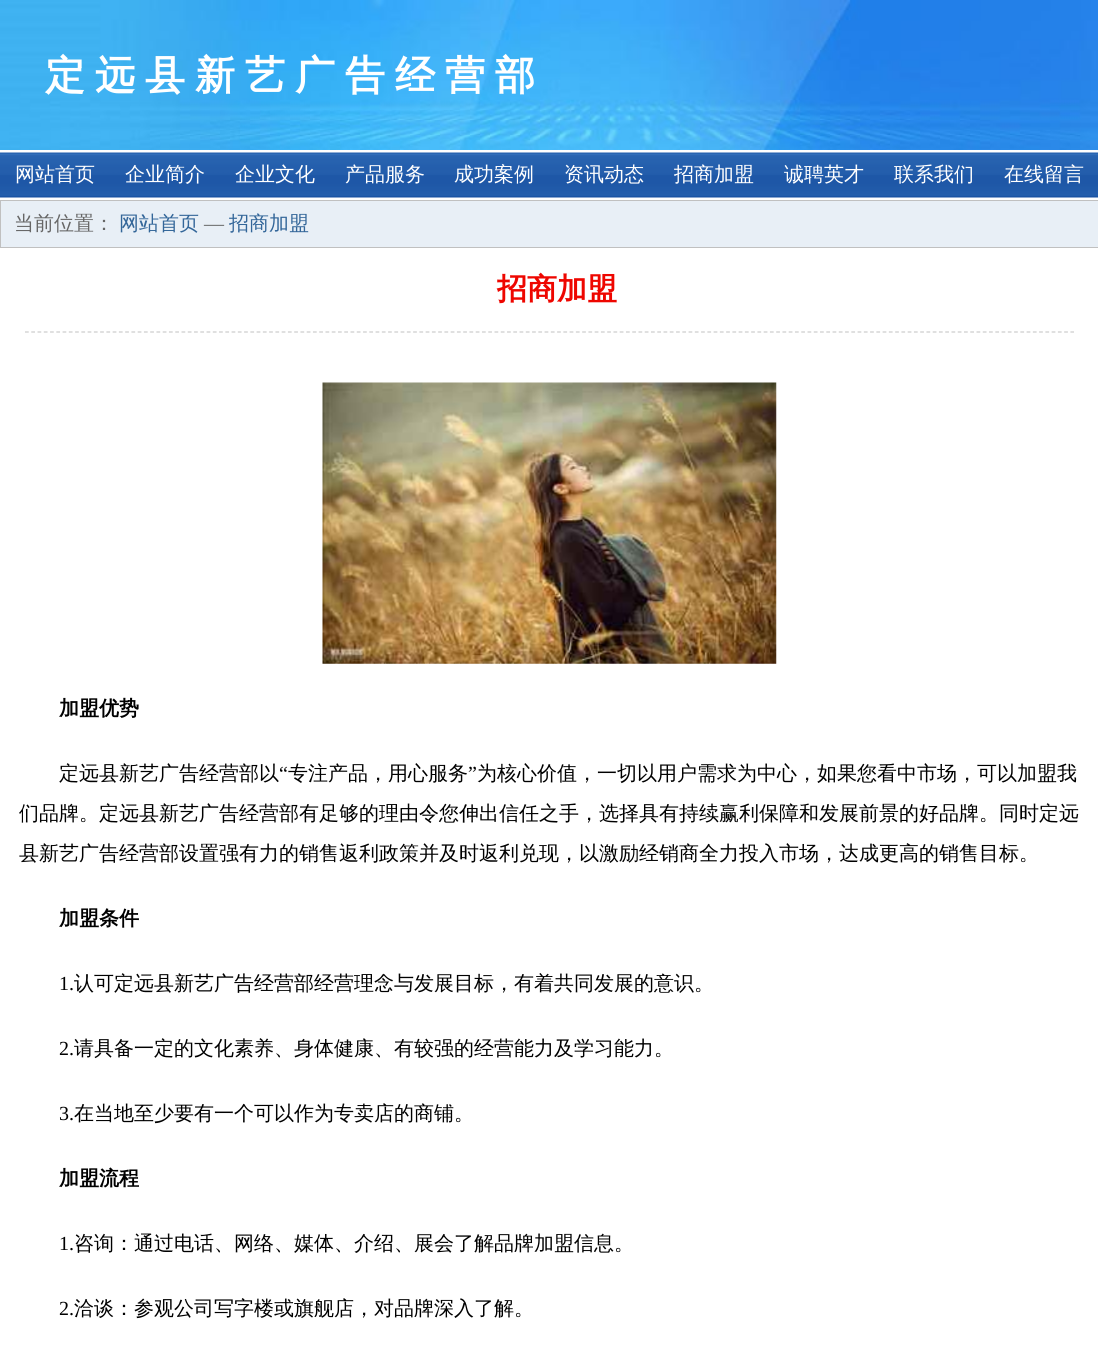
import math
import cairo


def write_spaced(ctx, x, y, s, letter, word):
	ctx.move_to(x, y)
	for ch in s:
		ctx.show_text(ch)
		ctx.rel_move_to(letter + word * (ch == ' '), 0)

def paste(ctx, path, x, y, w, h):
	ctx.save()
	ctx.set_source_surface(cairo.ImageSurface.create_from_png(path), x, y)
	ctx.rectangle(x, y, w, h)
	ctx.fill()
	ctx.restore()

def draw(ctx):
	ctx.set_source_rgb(1, 1, 1)
	ctx.paint()
	paste(ctx, 'media/1.png', 0, 0, 1098, 150)
	ctx.select_font_face('WenQuanYi Zen Hei', cairo.FONT_SLANT_NORMAL, cairo.FONT_WEIGHT_BOLD)
	ctx.set_font_size(40)
	ctx.set_source_rgb(1, 1, 1)
	write_spaced(ctx, 45, 89, '定远县新艺广告经营部', 10, 0)
	paste(ctx, 'media/2.png', 0, 152, 1098, 46)
	ctx.select_font_face('WenQuanYi Zen Hei Medium')
	ctx.set_font_size(20)
	for x, y, s in [
		(15, 181, '网站首页'),
		(125, 181, '企业简介'),
		(235, 181, '企业文化'),
		(345, 181, '产品服务'),
		(454, 181, '成功案例'),
		(564, 181, '资讯动态'),
		(674, 181, '招商加盟'),
		(784, 181, '诚聘英才'),
		(894, 181, '联系我们'),
		(1004, 181, '在线留言'),
	]:
		ctx.move_to(x, y)
		ctx.show_text(s)
	ctx.set_source_rgb(0.91, 0.937, 0.961)
	ctx.rectangle(0.5, 200.5, 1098, 47)
	ctx.fill_preserve()
	ctx.set_source_rgb(0.753, 0.753, 0.753)
	ctx.set_line_width(1)
	ctx.stroke()
	ctx.set_source_rgb(0.4, 0.4, 0.4)
	ctx.move_to(14, 230)
	ctx.show_text('当前位置：')
	ctx.set_source_rgb(0.2, 0.4, 0.6)
	ctx.move_to(119, 230)
	ctx.show_text('网站首页')
	ctx.select_font_face('Liberation Serif')
	ctx.set_source_rgb(0.4, 0.4, 0.4)
	ctx.move_to(204, 230)
	ctx.show_text('—')
	ctx.select_font_face('WenQuanYi Zen Hei Medium')
	ctx.set_source_rgb(0.2, 0.4, 0.6)
	ctx.move_to(229, 230)
	ctx.show_text('招商加盟')
	ctx.select_font_face('WenQuanYi Zen Hei', cairo.FONT_SLANT_NORMAL, cairo.FONT_WEIGHT_BOLD)
	ctx.set_font_size(30)
	ctx.set_source_rgb(0.933, 0.027, 0)
	ctx.move_to(497, 299)
	ctx.show_text('招商加盟')
	ctx.new_path()
	ctx.move_to(25, 332)
	ctx.line_to(1074, 332)
	ctx.set_source_rgb(0.8, 0.8, 0.8)
	ctx.set_line_width(1.2)
	ctx.set_dash([3.75, 2.51])
	ctx.stroke()
	paste(ctx, 'media/3.png', 322, 382, 455, 282)
	ctx.set_font_size(20)
	ctx.set_source_rgb(0, 0, 0)
	ctx.move_to(59, 715)
	ctx.show_text('加盟优势')
	ctx.select_font_face('WenQuanYi Zen Hei Medium')
	ctx.move_to(59, 780)
	ctx.show_text('定远县新艺广告经营部以')
	ctx.select_font_face('Liberation Serif')
	ctx.move_to(279, 780)
	ctx.show_text('“')
	ctx.select_font_face('WenQuanYi Zen Hei Medium')
	ctx.move_to(288, 780)
	ctx.show_text('专注产品，用心服务')
	ctx.select_font_face('Liberation Serif')
	ctx.move_to(468, 780)
	ctx.show_text('”')
	ctx.select_font_face('WenQuanYi Zen Hei Medium')
	for x, y, s in [
		(477, 780, '为核心价值，一切以用户需求为中心，如果您看中市场，可以加盟我'),
		(19, 820, '们品牌。定远县新艺广告经营部有足够的理由令您伸出信任之手，选择具有持续赢利保障和发展前景的好品牌。同时定远'),
		(19, 860, '县新艺广告经营部设置强有力的销售返利政策并及时返利兑现，以激励经销商全力投入市场，达成更高的销售目标。'),
	]:
		ctx.move_to(x, y)
		ctx.show_text(s)
	ctx.select_font_face('WenQuanYi Zen Hei', cairo.FONT_SLANT_NORMAL, cairo.FONT_WEIGHT_BOLD)
	ctx.move_to(59, 925)
	ctx.show_text('加盟条件')
	ctx.select_font_face('Liberation Serif')
	ctx.move_to(59, 990)
	ctx.show_text('1.')
	ctx.select_font_face('WenQuanYi Zen Hei Medium')
	ctx.move_to(74, 990)
	ctx.show_text('认可定远县新艺广告经营部经营理念与发展目标，有着共同发展的意识。')
	ctx.select_font_face('Liberation Serif')
	ctx.move_to(59, 1055)
	ctx.show_text('2.')
	ctx.select_font_face('WenQuanYi Zen Hei Medium')
	ctx.move_to(74, 1055)
	ctx.show_text('请具备一定的文化素养、身体健康、有较强的经营能力及学习能力。')
	ctx.select_font_face('Liberation Serif')
	ctx.move_to(59, 1120)
	ctx.show_text('3.')
	ctx.select_font_face('WenQuanYi Zen Hei Medium')
	ctx.move_to(74, 1120)
	ctx.show_text('在当地至少要有一个可以作为专卖店的商铺。')
	ctx.select_font_face('WenQuanYi Zen Hei', cairo.FONT_SLANT_NORMAL, cairo.FONT_WEIGHT_BOLD)
	ctx.move_to(59, 1185)
	ctx.show_text('加盟流程')
	ctx.select_font_face('Liberation Serif')
	ctx.move_to(59, 1250)
	ctx.show_text('1.')
	ctx.select_font_face('WenQuanYi Zen Hei Medium')
	ctx.move_to(74, 1250)
	ctx.show_text('咨询：通过电话、网络、媒体、介绍、展会了解品牌加盟信息。')
	ctx.select_font_face('Liberation Serif')
	ctx.move_to(59, 1315)
	ctx.show_text('2.')
	ctx.select_font_face('WenQuanYi Zen Hei Medium')
	ctx.move_to(74, 1315)
	ctx.show_text('洽谈：参观公司写字楼或旗舰店，对品牌深入了解。')


surface = cairo.ImageSurface(cairo.FORMAT_RGB24, 1098, 1356)
ctx = cairo.Context(surface)
options = cairo.FontOptions()
options.set_hint_metrics(cairo.HINT_METRICS_OFF)
options.set_hint_style(cairo.HINT_STYLE_NONE)
ctx.set_font_options(options)
ctx.set_miter_limit(4)
draw(ctx)
surface.write_to_png('image.png')
